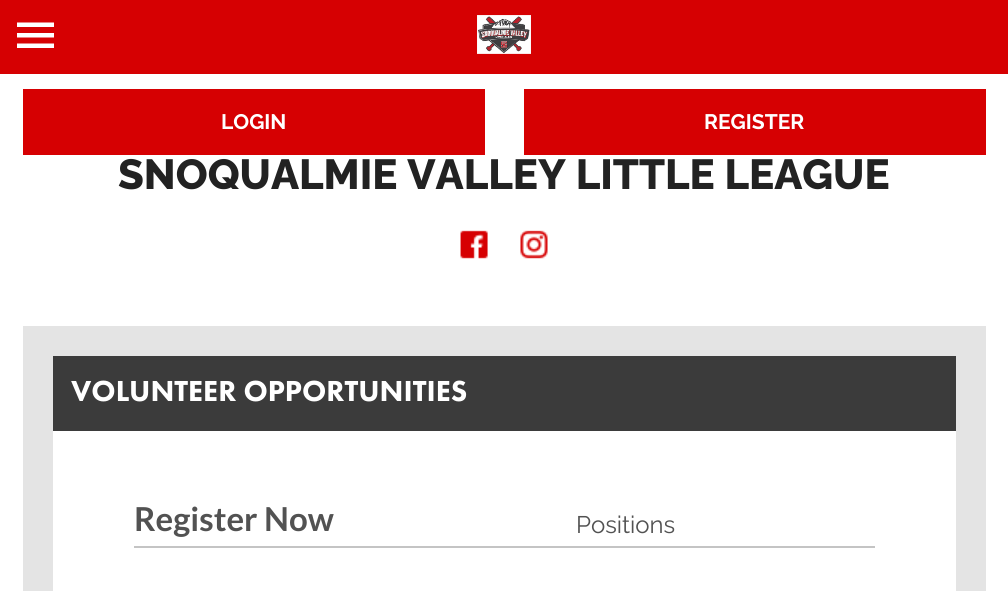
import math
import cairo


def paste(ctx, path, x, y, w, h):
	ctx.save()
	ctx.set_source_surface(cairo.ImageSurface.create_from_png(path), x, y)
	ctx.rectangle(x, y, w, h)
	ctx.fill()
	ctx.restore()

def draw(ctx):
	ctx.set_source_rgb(1, 1, 1)
	ctx.paint()
	ctx.set_source_rgb(0.839, 0, 0.008)
	ctx.rectangle(0, 0, 1008, 74)
	ctx.fill()
	ctx.save()
	ctx.rectangle(17, 17, 37, 37)
	ctx.clip()
	ctx.set_source_rgb(1, 1, 1)
	ctx.new_path()
	ctx.move_to(16.5, 22.5)
	ctx.line_to(54, 22.5)
	ctx.line_to(54, 27)
	ctx.line_to(16.5, 27)
	ctx.close_path()
	ctx.move_to(16.5, 33)
	ctx.line_to(54, 33)
	ctx.line_to(54, 37.5)
	ctx.line_to(16.5, 37.5)
	ctx.close_path()
	ctx.move_to(16.5, 43.5)
	ctx.line_to(54, 43.5)
	ctx.line_to(54, 48)
	ctx.line_to(16.5, 48)
	ctx.close_path()
	ctx.fill()
	ctx.restore()
	paste(ctx, 'media/1.png', 477, 15, 54, 39)
	ctx.rectangle(23, 89, 462, 66)
	ctx.fill()
	ctx.select_font_face('Raleway', cairo.FONT_SLANT_NORMAL, cairo.FONT_WEIGHT_BOLD)
	ctx.set_font_size(21)
	ctx.set_source_rgb(1, 1, 1)
	ctx.move_to(221, 129)
	ctx.show_text('LOGIN')
	ctx.set_source_rgb(0.839, 0, 0.008)
	ctx.rectangle(524, 89, 462, 66)
	ctx.fill()
	ctx.set_source_rgb(1, 1, 1)
	ctx.move_to(704, 129)
	ctx.show_text('REGISTER')
	ctx.select_font_face('Raleway ExtraBold')
	ctx.set_font_size(42)
	ctx.set_source_rgb(0.133, 0.133, 0.133)
	ctx.move_to(118, 189)
	ctx.show_text('SNOQUALMIE VALLEY LITTLE LEAGUE')
	paste(ctx, 'media/2.png', 460, 230, 28, 29)
	paste(ctx, 'media/3.png', 520, 230, 28, 29)
	ctx.set_source_rgb(0.894, 0.894, 0.894)
	ctx.rectangle(23, 326, 963, 265)
	ctx.fill()
	ctx.set_source_rgb(0.231, 0.231, 0.231)
	ctx.rectangle(53, 356, 903, 75)
	ctx.fill()
	ctx.select_font_face('Futura PT Black')
	ctx.set_font_size(30)
	ctx.set_source_rgb(1, 1, 1)
	ctx.move_to(71, 401)
	ctx.show_text('VOLUNTEER OPPORTUNITIES')
	ctx.rectangle(53, 431, 903, 160)
	ctx.fill()
	ctx.select_font_face('Lato', cairo.FONT_SLANT_NORMAL, cairo.FONT_WEIGHT_BOLD)
	ctx.set_font_size(33)
	ctx.set_source_rgb(0.322, 0.322, 0.322)
	ctx.move_to(134, 531)
	ctx.show_text('Register Now')
	ctx.select_font_face('Raleway')
	ctx.set_font_size(24)
	ctx.move_to(576, 533)
	ctx.show_text('Positions')
	ctx.set_source_rgb(0.769, 0.769, 0.769)
	ctx.rectangle(134, 546, 741, 2)
	ctx.fill()


surface = cairo.ImageSurface(cairo.FORMAT_RGB24, 1008, 591)
ctx = cairo.Context(surface)
options = cairo.FontOptions()
options.set_hint_metrics(cairo.HINT_METRICS_OFF)
options.set_hint_style(cairo.HINT_STYLE_NONE)
ctx.set_font_options(options)
ctx.set_miter_limit(4)
draw(ctx)
surface.write_to_png('image.png')
